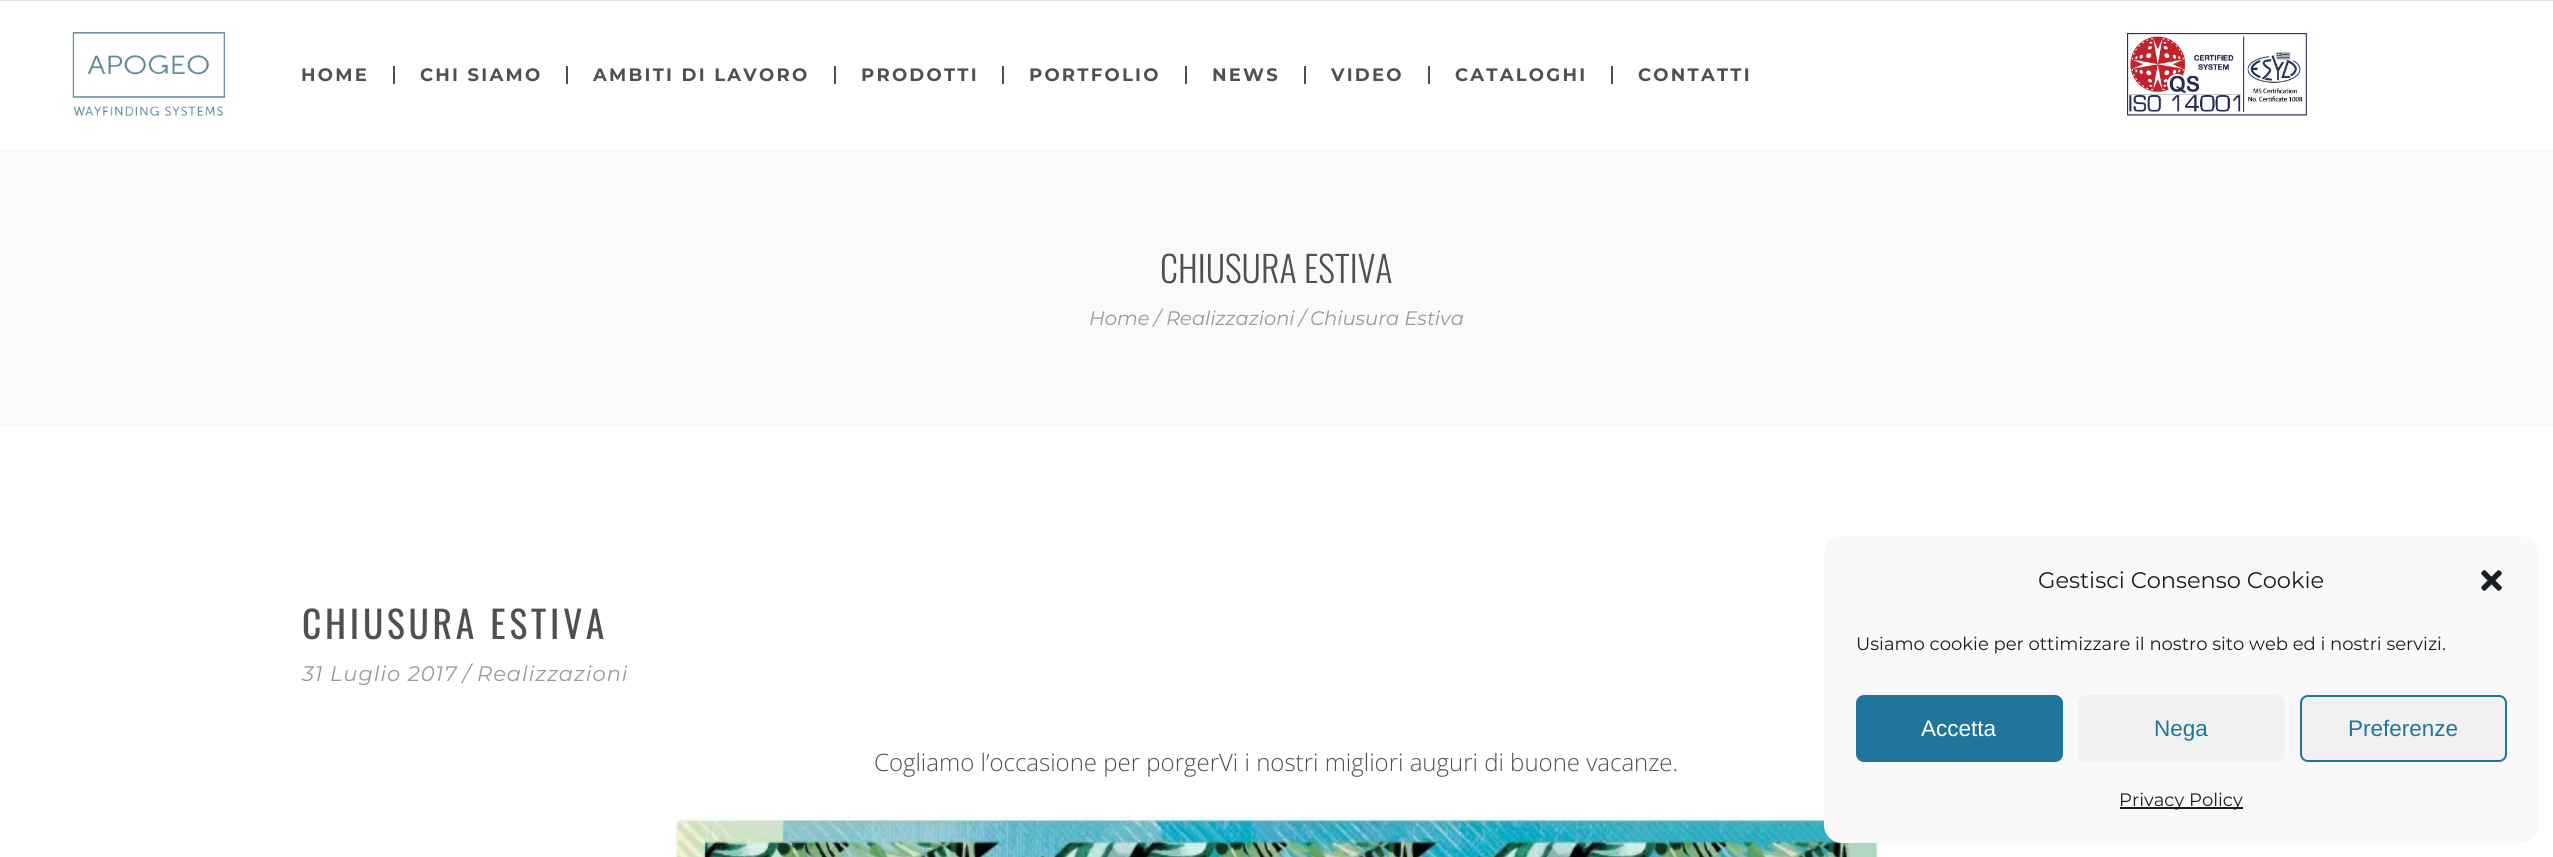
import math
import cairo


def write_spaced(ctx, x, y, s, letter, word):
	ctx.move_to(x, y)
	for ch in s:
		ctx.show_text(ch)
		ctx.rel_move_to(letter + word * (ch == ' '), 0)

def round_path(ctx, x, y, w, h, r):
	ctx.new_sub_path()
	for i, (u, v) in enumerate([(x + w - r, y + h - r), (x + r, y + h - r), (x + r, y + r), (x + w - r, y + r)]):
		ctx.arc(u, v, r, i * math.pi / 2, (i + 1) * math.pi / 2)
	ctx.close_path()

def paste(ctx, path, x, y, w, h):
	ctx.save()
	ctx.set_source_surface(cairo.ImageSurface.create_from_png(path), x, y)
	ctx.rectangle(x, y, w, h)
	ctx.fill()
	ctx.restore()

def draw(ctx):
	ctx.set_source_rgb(1, 1, 1)
	ctx.paint()
	ctx.set_source_rgb(0.882, 0.882, 0.882)
	ctx.rectangle(0, 0, 2553, 1)
	ctx.fill()
	paste(ctx, 'media/1.png', 72, 32, 153, 84)
	ctx.select_font_face('Montserrat', cairo.FONT_SLANT_NORMAL, cairo.FONT_WEIGHT_BOLD)
	ctx.set_font_size(18)
	ctx.set_source_rgb(0.314, 0.314, 0.314)
	write_spaced(ctx, 301, 81, 'HOME', 2.25, 0)
	ctx.rectangle(393, 66, 2, 18)
	ctx.fill()
	write_spaced(ctx, 420, 81, 'CHI SIAMO', 2.25, 0)
	ctx.rectangle(566, 66, 2, 18)
	ctx.fill()
	write_spaced(ctx, 593, 81, 'AMBITI DI LAVORO', 2.25, 0)
	ctx.rectangle(834, 66, 2, 18)
	ctx.fill()
	write_spaced(ctx, 861, 81, 'PRODOTTI', 2.25, 0)
	ctx.rectangle(1002, 66, 2, 18)
	ctx.fill()
	write_spaced(ctx, 1029, 81, 'PORTFOLIO', 2.25, 0)
	ctx.rectangle(1185, 66, 2, 18)
	ctx.fill()
	write_spaced(ctx, 1212, 81, 'NEWS', 2.25, 0)
	ctx.rectangle(1304, 66, 2, 18)
	ctx.fill()
	write_spaced(ctx, 1331, 81, 'VIDEO', 2.25, 0)
	ctx.rectangle(1428, 66, 2, 18)
	ctx.fill()
	write_spaced(ctx, 1455, 81, 'CATALOGHI', 2.25, 0)
	ctx.rectangle(1611, 66, 2, 18)
	ctx.fill()
	write_spaced(ctx, 1638, 81, 'CONTATTI', 2.25, 0)
	paste(ctx, 'media/2.png', 2127, 33, 180, 83)
	ctx.set_source_rgb(0.98, 0.98, 0.98)
	ctx.rectangle(0, 150, 2553, 276)
	ctx.fill()
	ctx.select_font_face('Oswald Light')
	ctx.set_font_size(36)
	ctx.set_source_rgb(0.314, 0.314, 0.314)
	ctx.move_to(1160, 283)
	ctx.show_text('CHIUSURA ESTIVA')
	ctx.select_font_face('Montserrat Thin', cairo.FONT_SLANT_ITALIC)
	ctx.set_font_size(19.5)
	ctx.set_source_rgb(0.6, 0.6, 0.6)
	for x, y, s in [
		(1089, 325, 'Home'),
		(1154, 325, '/'),
		(1166, 325, 'Realizzazioni'),
		(1299, 325, '/'),
		(1310, 325, 'Chiusura Estiva'),
	]:
		ctx.move_to(x, y)
		ctx.show_text(s)
	ctx.select_font_face('Oswald')
	ctx.set_font_size(37.5)
	ctx.set_source_rgb(0.314, 0.314, 0.314)
	write_spaced(ctx, 302, 639, 'CHIUSURA ESTIVA', 3.75, 0)
	ctx.select_font_face('Montserrat Thin', cairo.FONT_SLANT_ITALIC)
	ctx.set_font_size(21)
	ctx.set_source_rgb(0.6, 0.6, 0.6)
	for x, y, s in [
		(302, 681, '31 Luglio 2017'),
		(463, 681, '/'),
		(477, 681, 'Realizzazioni'),
	]:
		write_spaced(ctx, x, y, s, 1, 0)
	ctx.select_font_face('Open Sans Light')
	ctx.set_font_size(24)
	ctx.set_source_rgb(0.314, 0.314, 0.314)
	ctx.move_to(874, 771)
	ctx.show_text('Cogliamo l’occasione per porgerVi i nostri migliori auguri di buone vacanze.')
	paste(ctx, 'media/3.png', 674, 810, 1206, 47)
	ctx.set_source_rgb(0.976, 0.976, 0.976)
	round_path(ctx, 1825, 537, 712, 305, 17)
	ctx.fill_preserve()
	ctx.stroke()
	ctx.select_font_face('Montserrat')
	ctx.set_font_size(22.5)
	ctx.set_source_rgb(0.098, 0.118, 0.137)
	ctx.move_to(2038, 588)
	ctx.show_text('Gestisci Consenso Cookie')
	paste(ctx, 'media/4.png', 2481, 570, 21, 21)
	ctx.set_font_size(18)
	ctx.move_to(1856, 650)
	ctx.show_text('Usiamo cookie per ottimizzare il nostro sito web ed i nostri servizi.')
	ctx.set_source_rgb(0.129, 0.459, 0.608)
	round_path(ctx, 1857, 696, 205, 65, 7)
	ctx.fill_preserve()
	ctx.stroke()
	ctx.select_font_face('Liberation Sans')
	ctx.set_font_size(22.5)
	ctx.set_source_rgb(1, 1, 1)
	ctx.move_to(1921, 736)
	ctx.show_text('Accetta')
	ctx.set_source_rgb(0.945, 0.945, 0.945)
	round_path(ctx, 2078, 695, 207, 67, 8)
	ctx.fill()
	ctx.set_source_rgb(0.129, 0.459, 0.608)
	ctx.move_to(2154, 736)
	ctx.show_text('Nega')
	ctx.set_source_rgb(0.945, 0.945, 0.945)
	round_path(ctx, 2301, 696, 205, 65, 7)
	ctx.fill_preserve()
	ctx.set_source_rgb(0.129, 0.459, 0.608)
	ctx.stroke()
	ctx.move_to(2348, 736)
	ctx.show_text('Preferenze')
	ctx.set_source_rgb(0.098, 0.118, 0.137)
	ctx.rectangle(2120, 807, 123, 2)
	ctx.fill()
	ctx.select_font_face('Montserrat')
	ctx.set_font_size(18)
	ctx.move_to(2119, 806)
	ctx.show_text('Privacy Policy')


surface = cairo.ImageSurface(cairo.FORMAT_RGB24, 2553, 857)
ctx = cairo.Context(surface)
options = cairo.FontOptions()
options.set_hint_metrics(cairo.HINT_METRICS_OFF)
options.set_hint_style(cairo.HINT_STYLE_NONE)
ctx.set_font_options(options)
ctx.set_miter_limit(4)
draw(ctx)
surface.write_to_png('image.png')
